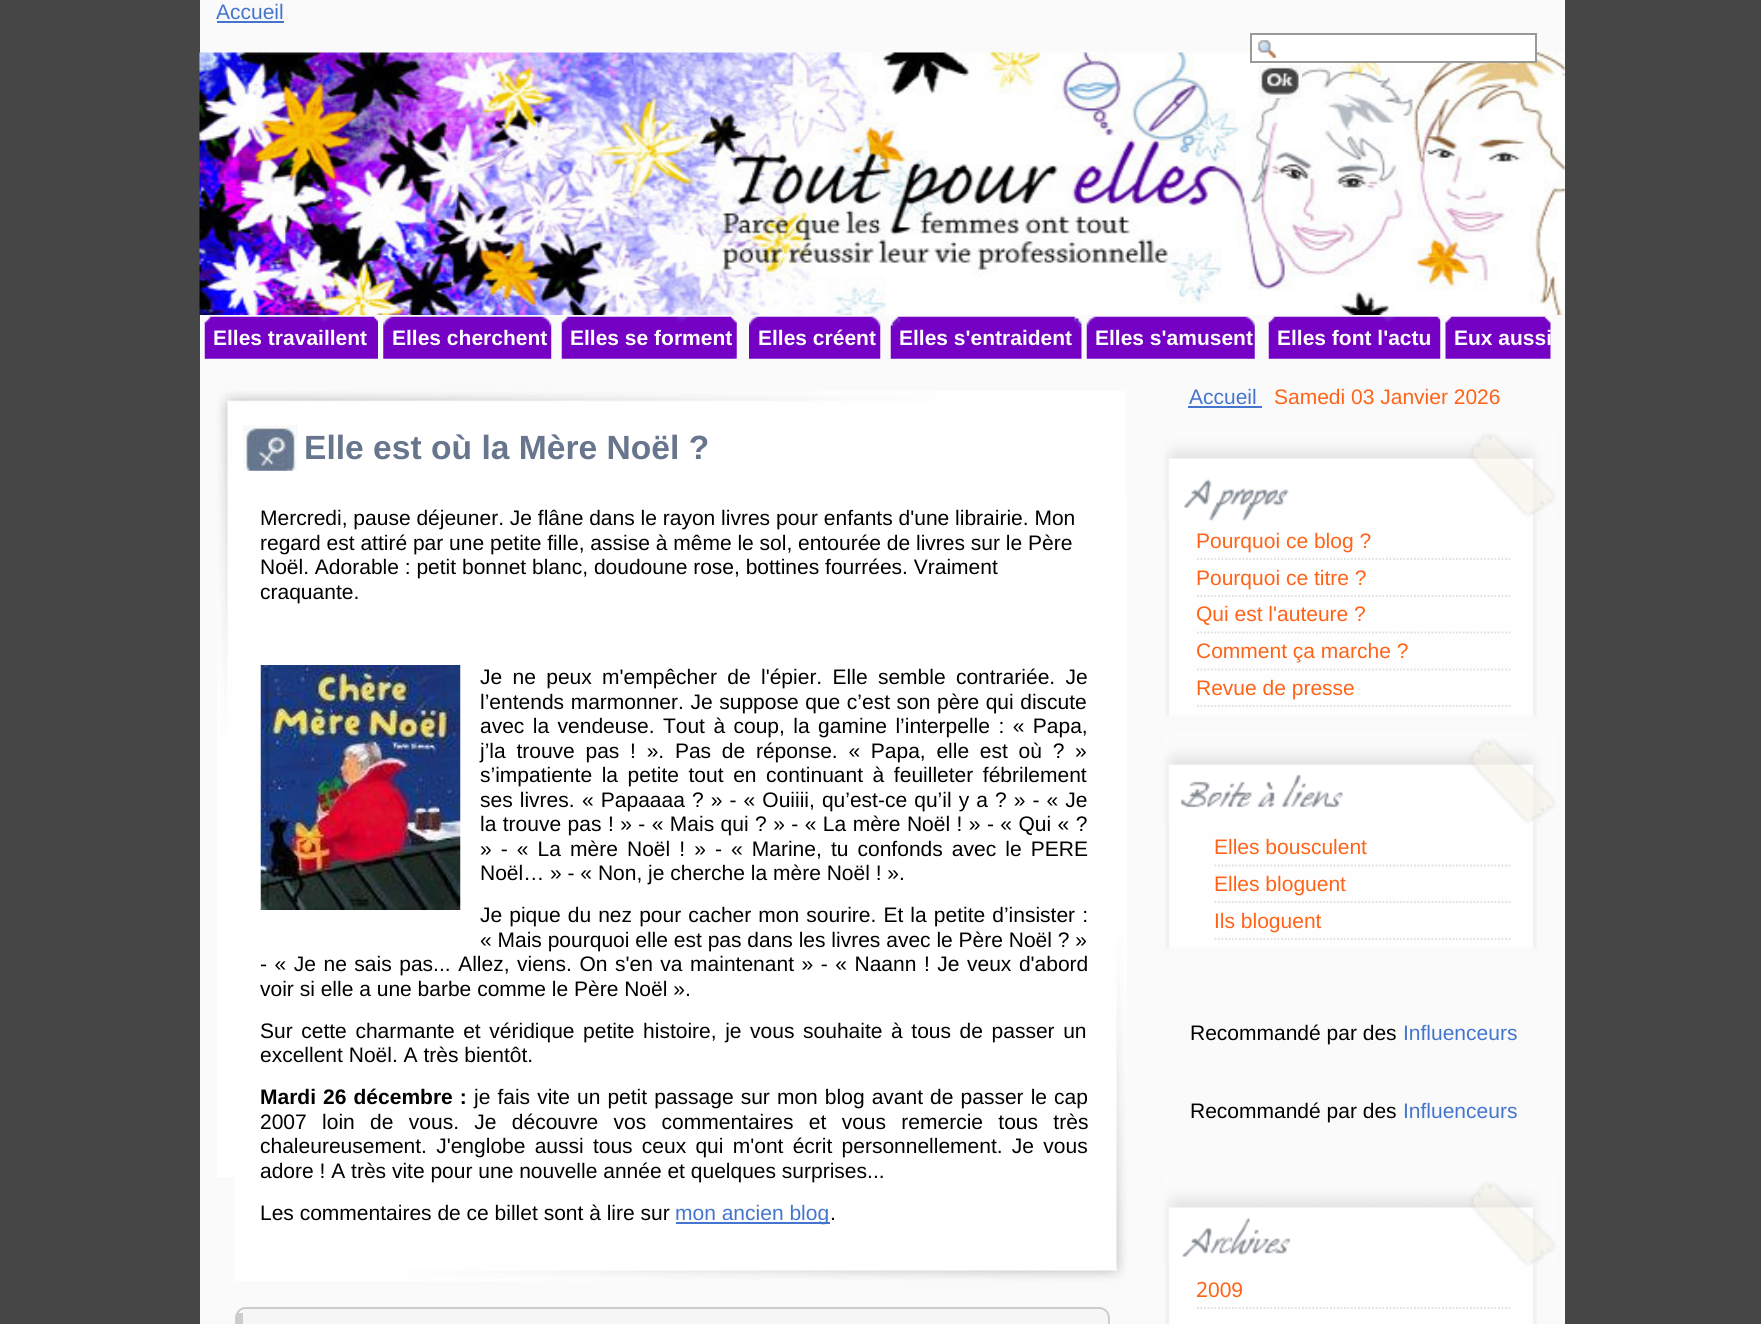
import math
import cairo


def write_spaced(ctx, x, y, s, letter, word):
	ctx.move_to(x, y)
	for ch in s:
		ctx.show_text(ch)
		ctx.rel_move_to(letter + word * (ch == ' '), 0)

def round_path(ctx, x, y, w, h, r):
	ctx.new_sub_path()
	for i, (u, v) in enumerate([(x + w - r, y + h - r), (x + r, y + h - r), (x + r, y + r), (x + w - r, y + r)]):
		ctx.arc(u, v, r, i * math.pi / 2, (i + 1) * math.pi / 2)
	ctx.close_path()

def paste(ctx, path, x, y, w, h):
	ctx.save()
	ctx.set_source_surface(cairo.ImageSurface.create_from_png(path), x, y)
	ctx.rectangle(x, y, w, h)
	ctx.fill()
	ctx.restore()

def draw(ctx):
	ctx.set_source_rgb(0.275, 0.275, 0.275)
	ctx.paint()
	ctx.set_source_rgb(0.98, 0.98, 0.98)
	ctx.rectangle(200, 0, 1365, 1324)
	ctx.fill()
	paste(ctx, 'media/1.png', 199, 52, 1366, 263)
	ctx.select_font_face('Liberation Sans')
	ctx.set_font_size(21)
	ctx.set_source_rgb(0.267, 0.459, 0.808)
	ctx.move_to(216, 19)
	ctx.show_text('Accueil')
	ctx.rectangle(217, 21, 67, 2)
	ctx.fill()
	ctx.set_source_rgb(1, 1, 1)
	ctx.rectangle(1252, 35, 283, 26)
	ctx.fill()
	paste(ctx, 'media/2.png', 1258, 40, 18, 18)
	ctx.rectangle(1251, 34, 285, 28)
	ctx.set_source_rgb(0.6, 0.6, 0.6)
	ctx.stroke()
	paste(ctx, 'media/3.png', 1258, 65, 44, 33)
	paste(ctx, 'media/4.png', 204, 316, 174, 43)
	paste(ctx, 'media/5.png', 383, 316, 169, 43)
	paste(ctx, 'media/6.png', 561, 316, 176, 43)
	paste(ctx, 'media/7.png', 749, 316, 132, 43)
	paste(ctx, 'media/8.png', 890, 316, 192, 43)
	paste(ctx, 'media/9.png', 1086, 316, 169, 43)
	paste(ctx, 'media/10.png', 1268, 316, 173, 43)
	paste(ctx, 'media/11.png', 1445, 316, 106, 43)
	ctx.select_font_face('Liberation Sans', cairo.FONT_SLANT_NORMAL, cairo.FONT_WEIGHT_BOLD)
	ctx.set_source_rgb(1, 1, 1)
	for x, y, s in [
		(213, 345, 'Elles travaillent'),
		(392, 345, 'Elles cherchent'),
		(570, 345, 'Elles se forment'),
		(758, 345, 'Elles créent'),
		(899, 345, 'Elles s\'entraident'),
		(1095, 345, 'Elles s\'amusent'),
		(1277, 345, 'Elles font l\'actu'),
		(1454, 345, 'Eux aussi'),
	]:
		ctx.move_to(x, y)
		ctx.show_text(s)
	ctx.select_font_face('Liberation Sans')
	ctx.set_source_rgb(0.267, 0.459, 0.808)
	ctx.move_to(1189, 404)
	ctx.show_text('Accueil')
	ctx.rectangle(1188, 406, 74, 2)
	ctx.fill()
	ctx.set_source_rgb(1, 0.388, 0.09)
	ctx.move_to(1274, 404)
	ctx.show_text('Samedi 03 Janvier 2026')
	paste(ctx, 'media/12.png', 217, 391, 908, 786)
	paste(ctx, 'media/13.png', 235, 494, 892, 787)
	paste(ctx, 'media/14.png', 243, 425, 55, 46)
	ctx.select_font_face('Liberation Sans', cairo.FONT_SLANT_NORMAL, cairo.FONT_WEIGHT_BOLD)
	ctx.set_font_size(33.6)
	ctx.set_source_rgb(0.404, 0.463, 0.553)
	ctx.move_to(304, 459)
	ctx.show_text('Elle est où la Mère Noël ?')
	ctx.select_font_face('Liberation Sans')
	ctx.set_font_size(21)
	ctx.set_source_rgb(0, 0, 0)
	for x, y, s in [
		(260, 525, 'Mercredi, pause déjeuner. Je flâne dans le rayon livres pour enfants d\'une librairie. Mon'),
		(260, 550, 'regard est attiré par une petite fille, assise à même le sol, entourée de livres sur le Père'),
		(260, 574, 'Noël. Adorable : petit bonnet blanc, doudoune rose, bottines fourrées. Vraiment'),
		(260, 599, 'craquante.'),
	]:
		ctx.move_to(x, y)
		ctx.show_text(s)
	paste(ctx, 'media/15.png', 260, 665, 201, 245)
	write_spaced(ctx, 480, 684, 'Je ne peux m\'empêcher de l\'épier. Elle semble contrariée. Je', 0, 4.5)
	write_spaced(ctx, 480, 709, 'l’entends marmonner. Je suppose que c’est son père qui discute', 0, 0.75)
	write_spaced(ctx, 480, 733, 'avec la vendeuse. Tout à coup, la gamine l’interpelle : « Papa,', 0, 2.6)
	write_spaced(ctx, 480, 758, 'j’la trouve pas ! ». Pas de réponse. « Papa, elle est où ? »', 0, 4.9)
	write_spaced(ctx, 480, 782, 's’impatiente la petite tout en continuant à feuilleter fébrilement', 0, 3.75)
	write_spaced(ctx, 480, 807, 'ses livres.', 0, 1.25)
	write_spaced(ctx, 582, 807, '« Papaaaa ? » - « Ouiiii, qu’est-ce qu’il y a ? » - « Je', 0, 1.25)
	write_spaced(ctx, 480, 831, 'la trouve pas ! » - « Mais qui ? » - « La mère Noël ! » - « Qui « ?', 0, 0.6)
	write_spaced(ctx, 480, 856, '» - « La mère Noël ! » - « Marine, tu confonds avec le PERE', 0, 3.25)
	ctx.move_to(480, 880)
	ctx.show_text('Noël… » - « Non, je cherche la mère Noël ! ».')
	write_spaced(ctx, 480, 922, 'Je pique du nez pour cacher mon sourire. Et la petite d’insister :', 0, 1.25)
	ctx.move_to(480, 947)
	ctx.show_text('« Mais pourquoi elle est pas dans les livres avec le Père Noël ? »')
	write_spaced(ctx, 260, 971, '- « Je ne sais pas... Allez, viens. On s\'en va maintenant » - « Naann ! Je veux d\'abord', 0, 1.7)
	ctx.move_to(260, 996)
	ctx.show_text('voir si elle a une barbe comme le Père Noël ».')
	write_spaced(ctx, 260, 1038, 'Sur cette charmante et véridique petite histoire, je vous souhaite à tous de passer un', 0, 2.75)
	ctx.move_to(260, 1062)
	ctx.show_text('excellent Noël. A très bientôt.')
	ctx.select_font_face('Liberation Sans', cairo.FONT_SLANT_NORMAL, cairo.FONT_WEIGHT_BOLD)
	write_spaced(ctx, 260, 1104, 'Mardi 26 décembre :', 0, 1.25)
	ctx.select_font_face('Liberation Sans')
	write_spaced(ctx, 474, 1104, 'je fais vite un petit passage sur mon blog avant de passer le cap', 0, 1.25)
	write_spaced(ctx, 260, 1129, '2007 loin de vous. Je découvre vos commentaires et vous remercie tous très', 0, 9.5)
	write_spaced(ctx, 260, 1153, 'chaleureusement. J\'englobe aussi tous ceux qui m\'ont écrit personnellement. Je vous', 0, 3.4)
	ctx.move_to(260, 1178)
	ctx.show_text('adore ! A très vite pour une nouvelle année et quelques surprises...')
	ctx.move_to(260, 1220)
	ctx.show_text('Les commentaires de ce billet sont à lire sur')
	ctx.set_source_rgb(0.267, 0.459, 0.808)
	ctx.rectangle(676, 1222, 154, 2)
	ctx.fill()
	ctx.move_to(675, 1220)
	ctx.show_text('mon ancien blog')
	ctx.set_source_rgb(0, 0, 0)
	ctx.move_to(830, 1220)
	ctx.show_text('.')
	ctx.set_source_rgb(0.961, 0.961, 0.961)
	ctx.new_path()
	ctx.move_to(245, 1309)
	ctx.line_to(1099, 1309)
	ctx.curve_to(1104, 1309, 1108, 1313, 1108, 1318)
	ctx.line_to(1108, 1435)
	ctx.curve_to(1108, 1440, 1104, 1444, 1099, 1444)
	ctx.line_to(245, 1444)
	ctx.curve_to(244, 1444, 243, 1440, 243, 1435)
	ctx.line_to(243, 1318)
	ctx.curve_to(243, 1313, 244, 1309, 245, 1309)
	ctx.close_path()
	ctx.fill()
	round_path(ctx, 236, 1308, 873, 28, 10)
	ctx.set_source_rgb(0.8, 0.8, 0.8)
	ctx.stroke()
	ctx.rectangle(237, 1313, 6, 11)
	ctx.fill()
	paste(ctx, 'media/16.png', 1165, 521, 372, 195)
	paste(ctx, 'media/17.png', 1164, 427, 392, 94)
	ctx.new_path()
	ctx.move_to(1197, 559)
	ctx.line_to(1512, 559)
	ctx.set_source_rgb(0.875, 0.875, 0.875)
	ctx.set_line_width(1.8)
	ctx.set_dash([1.75, 1.75])
	ctx.stroke()
	ctx.set_source_rgb(1, 0.388, 0.09)
	ctx.move_to(1196, 548)
	ctx.show_text('Pourquoi ce blog ?')
	ctx.new_path()
	ctx.move_to(1197, 596)
	ctx.line_to(1512, 596)
	ctx.set_source_rgb(0.875, 0.875, 0.875)
	ctx.stroke()
	ctx.set_source_rgb(1, 0.388, 0.09)
	ctx.move_to(1196, 585)
	ctx.show_text('Pourquoi ce titre ?')
	ctx.new_path()
	ctx.move_to(1197, 632.5)
	ctx.line_to(1512, 632.5)
	ctx.set_source_rgb(0.875, 0.875, 0.875)
	ctx.stroke()
	ctx.set_source_rgb(1, 0.388, 0.09)
	ctx.move_to(1196, 621)
	ctx.show_text('Qui est l\'auteure ?')
	ctx.new_path()
	ctx.move_to(1197, 669.5)
	ctx.line_to(1512, 669.5)
	ctx.set_source_rgb(0.875, 0.875, 0.875)
	ctx.stroke()
	ctx.set_source_rgb(1, 0.388, 0.09)
	ctx.move_to(1196, 658)
	ctx.show_text('Comment ça marche ?')
	ctx.new_path()
	ctx.move_to(1197, 706)
	ctx.line_to(1512, 706)
	ctx.set_source_rgb(0.875, 0.875, 0.875)
	ctx.stroke()
	ctx.set_source_rgb(1, 0.388, 0.09)
	ctx.move_to(1196, 695)
	ctx.show_text('Revue de presse')
	paste(ctx, 'media/18.png', 1165, 733, 372, 216)
	paste(ctx, 'media/19.png', 1164, 733, 392, 90)
	ctx.new_path()
	ctx.move_to(1214.5, 865.5)
	ctx.line_to(1512, 865.5)
	ctx.set_source_rgb(0.875, 0.875, 0.875)
	ctx.stroke()
	ctx.set_source_rgb(1, 0.388, 0.09)
	ctx.move_to(1214, 854)
	ctx.show_text('Elles bousculent')
	ctx.new_path()
	ctx.move_to(1214.5, 902)
	ctx.line_to(1512, 902)
	ctx.set_source_rgb(0.875, 0.875, 0.875)
	ctx.stroke()
	ctx.set_source_rgb(1, 0.388, 0.09)
	ctx.move_to(1214, 891)
	ctx.show_text('Elles bloguent')
	ctx.new_path()
	ctx.move_to(1214.5, 939)
	ctx.line_to(1512, 939)
	ctx.set_source_rgb(0.875, 0.875, 0.875)
	ctx.stroke()
	ctx.set_source_rgb(1, 0.388, 0.09)
	ctx.move_to(1214, 928)
	ctx.show_text('Ils bloguent')
	ctx.set_source_rgb(0, 0, 0)
	ctx.move_to(1190, 1040)
	ctx.show_text('Recommandé par des')
	ctx.set_source_rgb(0.267, 0.459, 0.808)
	ctx.move_to(1403, 1040)
	ctx.show_text('Influenceurs')
	ctx.set_source_rgb(0, 0, 0)
	ctx.move_to(1190, 1118)
	ctx.show_text('Recommandé par des')
	ctx.set_source_rgb(0.267, 0.459, 0.808)
	ctx.move_to(1403, 1118)
	ctx.show_text('Influenceurs')
	paste(ctx, 'media/20.png', 1165, 1266, 372, 58)
	paste(ctx, 'media/21.png', 1164, 1176, 392, 90)
	ctx.new_path()
	ctx.move_to(1197, 1308)
	ctx.line_to(1512, 1308)
	ctx.set_source_rgb(0.875, 0.875, 0.875)
	ctx.stroke()
	ctx.select_font_face('Noto Sans')
	ctx.set_source_rgb(1, 0.388, 0.09)
	ctx.move_to(1196, 1297)
	ctx.show_text('2')
	ctx.select_font_face('Liberation Sans')
	ctx.move_to(1208, 1297)
	ctx.show_text('009')


surface = cairo.ImageSurface(cairo.FORMAT_RGB24, 1761, 1324)
ctx = cairo.Context(surface)
options = cairo.FontOptions()
options.set_hint_metrics(cairo.HINT_METRICS_OFF)
options.set_hint_style(cairo.HINT_STYLE_NONE)
ctx.set_font_options(options)
ctx.set_miter_limit(4)
draw(ctx)
surface.write_to_png('image.png')
